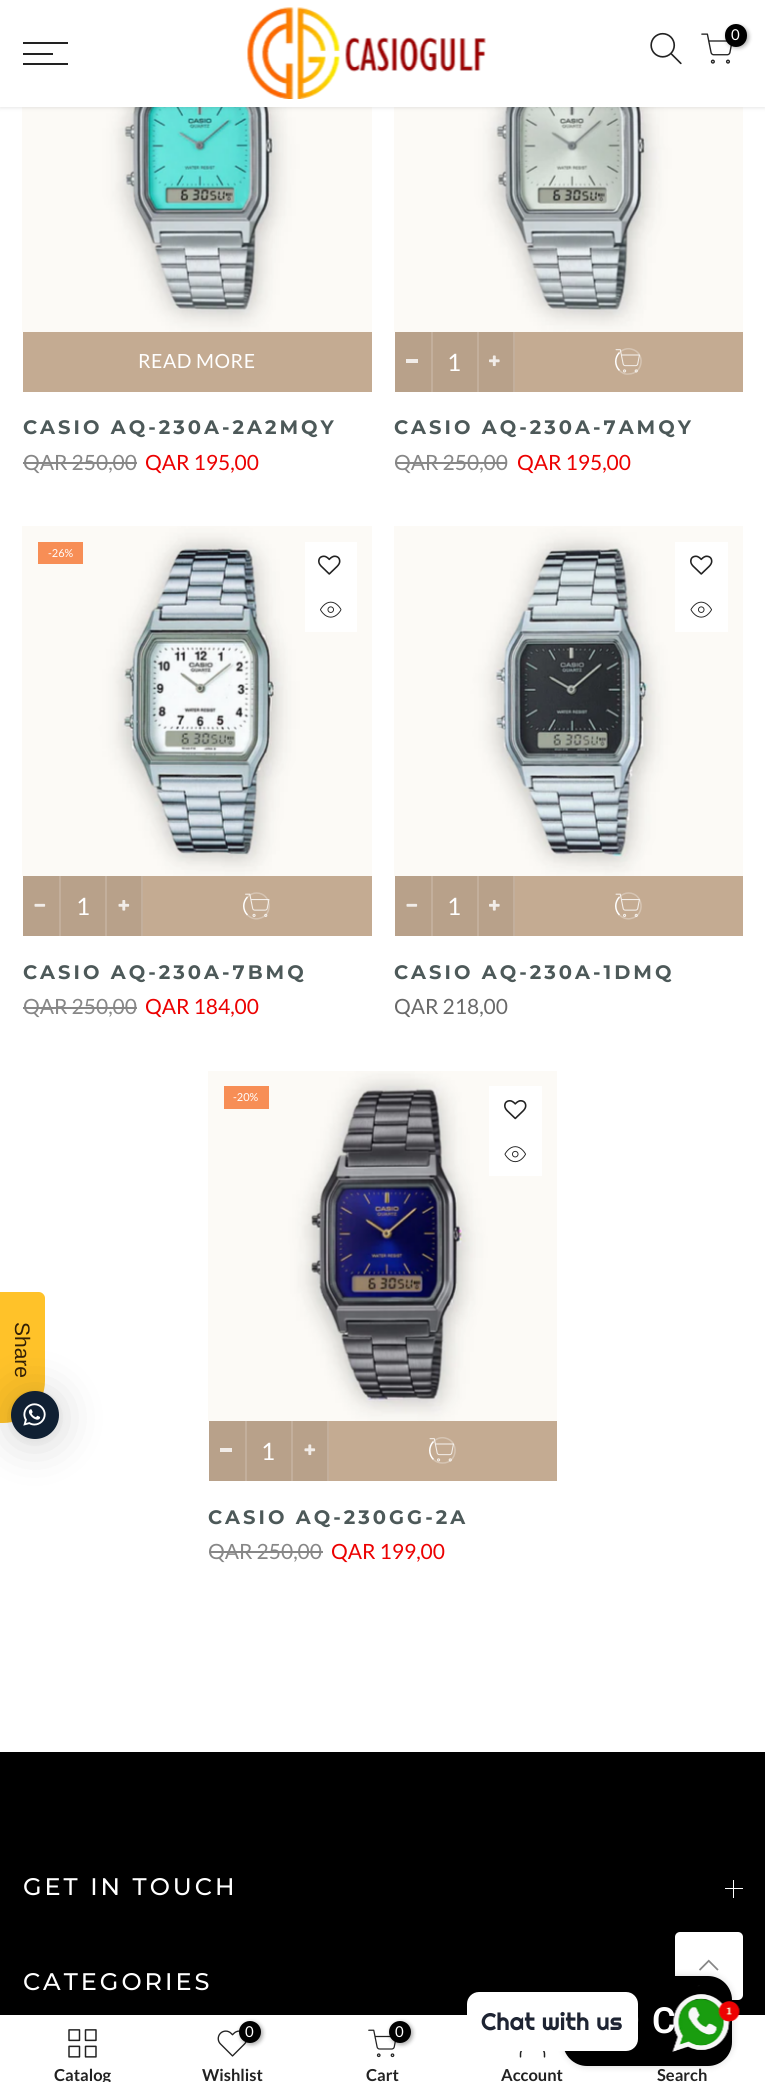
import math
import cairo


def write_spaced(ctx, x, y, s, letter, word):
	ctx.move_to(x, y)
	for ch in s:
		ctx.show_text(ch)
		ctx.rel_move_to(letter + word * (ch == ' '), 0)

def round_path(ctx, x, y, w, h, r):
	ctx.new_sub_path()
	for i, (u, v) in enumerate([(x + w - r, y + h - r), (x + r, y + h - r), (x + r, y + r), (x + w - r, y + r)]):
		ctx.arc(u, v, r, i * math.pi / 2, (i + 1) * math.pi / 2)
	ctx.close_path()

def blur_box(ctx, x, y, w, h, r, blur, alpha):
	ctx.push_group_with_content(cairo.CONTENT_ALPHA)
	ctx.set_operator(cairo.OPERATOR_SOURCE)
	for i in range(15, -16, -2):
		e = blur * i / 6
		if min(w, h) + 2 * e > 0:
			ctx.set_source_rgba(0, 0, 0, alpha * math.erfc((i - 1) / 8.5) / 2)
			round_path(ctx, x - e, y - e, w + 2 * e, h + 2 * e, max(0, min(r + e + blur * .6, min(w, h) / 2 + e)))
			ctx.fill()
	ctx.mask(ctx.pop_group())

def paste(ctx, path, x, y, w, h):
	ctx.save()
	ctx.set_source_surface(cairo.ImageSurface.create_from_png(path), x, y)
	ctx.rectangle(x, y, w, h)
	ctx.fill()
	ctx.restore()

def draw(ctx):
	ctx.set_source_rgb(1, 1, 1)
	ctx.paint()
	ctx.set_source_rgb(1, 0.761, 0.161)
	ctx.new_path()
	ctx.move_to(0, 1423)
	ctx.line_to(0, 1292)
	ctx.line_to(39, 1292)
	ctx.curve_to(42, 1292, 45, 1295, 45, 1298)
	ctx.line_to(45, 1381)
	ctx.curve_to(45, 1404, 26, 1423, 3, 1423)
	ctx.close_path()
	ctx.fill()
	ctx.set_source_rgb(0, 0, 0)
	blur_box(ctx, 11, 1394, 48, 48, 24, 24, 0.16)
	blur_box(ctx, 11, 1392, 48, 48, 24, 4.5, 0.06)
	ctx.set_source_rgb(0.063, 0.125, 0.2)
	ctx.arc(35, 1415, 24, 0, 2 * math.pi)
	ctx.fill()
	paste(ctx, 'media/1.png', 23, 1403, 23, 23)
	ctx.select_font_face('Liberation Sans')
	ctx.set_font_size(21)
	ctx.set_source_rgb(0.2, 0.125, 0.027)
	ctx.save()
	ctx.translate(15, 1322)
	ctx.rotate(90 * math.pi / 180)
	ctx.move_to(0, 0)
	ctx.show_text('Share')
	ctx.restore()
	paste(ctx, 'media/5.png', 22, 107, 350, 225)
	paste(ctx, 'media/6.png', 394, 107, 349, 225)
	ctx.set_source_rgb(0, 0, 0)
	blur_box(ctx, 0, 2, 765, 106, 0, 2, 0.1)
	ctx.set_source_rgb(1, 1, 1)
	ctx.rectangle(0, 0, 765, 107)
	ctx.fill()
	paste(ctx, 'media/2.png', 247, 7, 239, 92)
	paste(ctx, 'media/3.png', 650, 32, 32, 33)
	paste(ctx, 'media/4.png', 701, 33, 31, 31)
	ctx.set_source_rgb(0, 0, 0)
	blur_box(ctx, 726, 26, 23, 22, 11, 2, 0.3)
	ctx.set_source_rgb(0, 0, 0)
	round_path(ctx, 725, 24, 22, 23, 11)
	ctx.fill()
	ctx.select_font_face('Lato')
	ctx.set_font_size(15)
	ctx.set_source_rgb(1, 1, 1)
	ctx.move_to(731, 40)
	ctx.show_text('0')
	ctx.set_source_rgb(0.133, 0.133, 0.133)
	ctx.rectangle(23, 42, 45, 2)
	ctx.rectangle(23, 53, 30, 2)
	ctx.rectangle(23, 63, 45, 2)
	ctx.fill()
	ctx.set_source_rgb(0.769, 0.671, 0.573)
	ctx.rectangle(23, 332, 349, 60)
	ctx.fill()
	ctx.set_font_size(19.5)
	ctx.set_source_rgb(1, 1, 1)
	write_spaced(ctx, 138, 368, 'READ MORE', 0.5, 0)
	ctx.select_font_face('Montserrat', cairo.FONT_SLANT_NORMAL, cairo.FONT_WEIGHT_BOLD)
	ctx.set_source_rgb(0.302, 0.349, 0.349)
	write_spaced(ctx, 23, 434, 'CASIO AQ-230A-2A2MQY', 3, 0)
	ctx.select_font_face('Lato')
	ctx.set_font_size(21)
	ctx.set_source_rgb(0.529, 0.529, 0.529)
	ctx.move_to(23, 470)
	ctx.show_text('QAR 250,00')
	ctx.rectangle(23, 462, 114, 2)
	ctx.fill()
	ctx.set_source_rgb(0.925, 0.004, 0.004)
	ctx.move_to(145, 470)
	ctx.show_text('QAR 195,00')
	ctx.set_source_rgb(0.769, 0.671, 0.573)
	ctx.rectangle(515, 332, 228, 60)
	ctx.fill()
	ctx.set_source_rgb(0.722, 0.631, 0.541)
	ctx.rectangle(395, 332, 36, 60)
	ctx.fill()
	ctx.set_source_rgb(0.765, 0.686, 0.612)
	ctx.rectangle(431, 332, 2, 60)
	ctx.fill()
	ctx.set_source_rgb(0.945, 0.925, 0.91)
	ctx.rectangle(406, 359, 12, 4)
	ctx.fill()
	ctx.set_source_rgb(0.722, 0.631, 0.541)
	ctx.rectangle(479, 332, 34, 60)
	ctx.fill()
	ctx.set_source_rgb(0.765, 0.686, 0.612)
	ctx.rectangle(513, 332, 2, 60)
	ctx.rectangle(477, 332, 2, 60)
	ctx.fill()
	paste(ctx, 'media/7.png', 489, 355, 11, 12)
	ctx.set_source_rgb(0.722, 0.631, 0.541)
	ctx.rectangle(433, 332, 44, 60)
	ctx.fill()
	ctx.set_font_size(24)
	ctx.set_source_rgb(1, 1, 1)
	ctx.move_to(447, 371)
	ctx.show_text('1')
	paste(ctx, 'media/8.png', 615, 349, 25, 24)
	ctx.new_path()
	ctx.move_to(619.5, 352.5)
	ctx.curve_to(622.5, 349.5, 627, 348, 631, 349)
	ctx.curve_to(646, 352, 643.5, 374, 628.5, 374)
	ctx.curve_to(625, 374.5, 622, 373, 619.5, 370.5)
	ctx.set_source_rgba(1, 1, 1, 0.3)
	ctx.set_line_width(1.5)
	ctx.stroke()
	ctx.new_path()
	ctx.move_to(619.5, 370.5)
	ctx.curve_to(614.5, 365.5, 614.5, 357.5, 619.5, 352.5)
	ctx.set_source_rgb(1, 1, 1)
	ctx.stroke()
	ctx.select_font_face('Montserrat', cairo.FONT_SLANT_NORMAL, cairo.FONT_WEIGHT_BOLD)
	ctx.set_font_size(19.5)
	ctx.set_source_rgb(0.302, 0.349, 0.349)
	write_spaced(ctx, 394, 434, 'CASIO AQ-230A-7AMQY', 3, 0)
	ctx.select_font_face('Lato')
	ctx.set_font_size(21)
	ctx.set_source_rgb(0.529, 0.529, 0.529)
	ctx.move_to(394, 470)
	ctx.show_text('QAR 250,00')
	ctx.rectangle(395, 462, 112, 2)
	ctx.fill()
	ctx.set_source_rgb(0.925, 0.004, 0.004)
	ctx.move_to(517, 470)
	ctx.show_text('QAR 195,00')
	paste(ctx, 'media/9.png', 22, 526, 350, 350)
	ctx.set_source_rgb(0.965, 0.557, 0.337)
	ctx.rectangle(38, 542, 45, 22)
	ctx.fill()
	ctx.set_font_size(11)
	ctx.set_source_rgb(1, 1, 1)
	ctx.move_to(48, 557)
	ctx.show_text('-26%')
	ctx.rectangle(305, 542, 52, 90)
	ctx.fill()
	paste(ctx, 'media/10.png', 318, 555, 23, 20)
	paste(ctx, 'media/11.png', 320, 601, 22, 17)
	ctx.new_path()
	ctx.move_to(321, 600)
	ctx.curve_to(323.5, 597.5, 326.5, 596, 330, 596)
	ctx.curve_to(345, 596, 347.5, 618.5, 332.5, 621.5)
	ctx.curve_to(328.5, 622.5, 324, 621, 321, 618)
	ctx.stroke()
	ctx.set_source_rgb(0.769, 0.671, 0.573)
	ctx.rectangle(143, 876, 229, 60)
	ctx.fill()
	ctx.set_source_rgb(0.722, 0.631, 0.541)
	ctx.rectangle(23, 876, 36, 60)
	ctx.fill()
	ctx.set_source_rgb(0.765, 0.686, 0.612)
	ctx.rectangle(59, 876, 2, 60)
	ctx.fill()
	paste(ctx, 'media/12.png', 34, 903, 12, 4)
	ctx.set_source_rgb(0.722, 0.631, 0.541)
	ctx.rectangle(107, 876, 34, 60)
	ctx.fill()
	ctx.set_source_rgb(0.765, 0.686, 0.612)
	ctx.rectangle(141, 876, 2, 60)
	ctx.rectangle(105, 876, 2, 60)
	ctx.fill()
	paste(ctx, 'media/13.png', 118, 900, 12, 11)
	ctx.set_source_rgb(0.722, 0.631, 0.541)
	ctx.rectangle(61, 876, 44, 60)
	ctx.fill()
	ctx.set_font_size(24)
	ctx.set_source_rgb(1, 1, 1)
	ctx.move_to(76, 915)
	ctx.show_text('1')
	paste(ctx, 'media/14.png', 245, 893, 25, 24)
	ctx.new_path()
	ctx.move_to(247.5, 897)
	ctx.curve_to(250, 894.5, 253, 893, 256.5, 893)
	ctx.curve_to(271.5, 893, 274, 915.5, 259, 918.5)
	ctx.curve_to(255, 919.5, 250.5, 918, 247.5, 915)
	ctx.set_source_rgba(1, 1, 1, 0.3)
	ctx.stroke()
	ctx.new_path()
	ctx.move_to(247.5, 915)
	ctx.curve_to(242.5, 910, 242.5, 902, 247.5, 897)
	ctx.set_source_rgb(1, 1, 1)
	ctx.stroke()
	ctx.select_font_face('Montserrat', cairo.FONT_SLANT_NORMAL, cairo.FONT_WEIGHT_BOLD)
	ctx.set_font_size(19.5)
	ctx.set_source_rgb(0.302, 0.349, 0.349)
	write_spaced(ctx, 23, 979, 'CASIO AQ-230A-7BMQ', 3, 0)
	ctx.select_font_face('Lato')
	ctx.set_font_size(21)
	ctx.set_source_rgb(0.529, 0.529, 0.529)
	ctx.move_to(23, 1014)
	ctx.show_text('QAR 250,00')
	ctx.rectangle(23, 1007, 114, 2)
	ctx.fill()
	ctx.set_source_rgb(0.925, 0.004, 0.004)
	ctx.move_to(145, 1014)
	ctx.show_text('QAR 184,00')
	paste(ctx, 'media/15.png', 394, 526, 349, 350)
	ctx.set_source_rgb(1, 1, 1)
	ctx.rectangle(675, 542, 53, 90)
	ctx.fill()
	paste(ctx, 'media/10.png', 690, 555, 23, 20)
	paste(ctx, 'media/16.png', 690, 601, 22, 17)
	ctx.new_path()
	ctx.move_to(693, 618)
	ctx.curve_to(688, 613, 688, 605, 693, 600)
	ctx.stroke()
	ctx.set_source_rgb(0.769, 0.671, 0.573)
	ctx.rectangle(515, 876, 228, 60)
	ctx.fill()
	ctx.set_source_rgb(0.722, 0.631, 0.541)
	ctx.rectangle(395, 876, 36, 60)
	ctx.fill()
	ctx.set_source_rgb(0.765, 0.686, 0.612)
	ctx.rectangle(431, 876, 2, 60)
	ctx.fill()
	paste(ctx, 'media/12.png', 406, 903, 12, 4)
	ctx.set_source_rgb(0.722, 0.631, 0.541)
	ctx.rectangle(479, 876, 34, 60)
	ctx.fill()
	ctx.set_source_rgb(0.765, 0.686, 0.612)
	ctx.rectangle(513, 876, 2, 60)
	ctx.rectangle(477, 876, 2, 60)
	ctx.fill()
	paste(ctx, 'media/17.png', 489, 900, 11, 11)
	ctx.set_source_rgb(0.722, 0.631, 0.541)
	ctx.rectangle(433, 876, 44, 60)
	ctx.fill()
	ctx.set_font_size(24)
	ctx.set_source_rgb(1, 1, 1)
	ctx.move_to(447, 915)
	ctx.show_text('1')
	paste(ctx, 'media/18.png', 615, 893, 25, 24)
	ctx.new_path()
	ctx.move_to(619.5, 897)
	ctx.curve_to(622, 894.5, 625, 893, 628.5, 893)
	ctx.curve_to(643.5, 893, 646, 915.5, 631, 918.5)
	ctx.curve_to(627, 919.5, 622.5, 918, 619.5, 915)
	ctx.set_source_rgba(1, 1, 1, 0.3)
	ctx.stroke()
	ctx.new_path()
	ctx.move_to(619.5, 915)
	ctx.curve_to(614.5, 910, 614.5, 902, 619.5, 897)
	ctx.set_source_rgb(1, 1, 1)
	ctx.stroke()
	ctx.select_font_face('Montserrat', cairo.FONT_SLANT_NORMAL, cairo.FONT_WEIGHT_BOLD)
	ctx.set_font_size(19.5)
	ctx.set_source_rgb(0.302, 0.349, 0.349)
	write_spaced(ctx, 394, 979, 'CASIO AQ-230A-1DMQ', 3, 0)
	ctx.select_font_face('Lato')
	ctx.set_font_size(21)
	ctx.set_source_rgb(0.412, 0.412, 0.412)
	ctx.move_to(394, 1014)
	ctx.show_text('QAR 218,00')
	paste(ctx, 'media/19.png', 208, 1071, 349, 350)
	ctx.set_source_rgb(0.965, 0.557, 0.337)
	ctx.rectangle(224, 1086, 45, 23)
	ctx.fill()
	ctx.set_font_size(11)
	ctx.set_source_rgb(1, 1, 1)
	ctx.move_to(233, 1101)
	ctx.show_text('-20%')
	ctx.rectangle(489, 1086, 53, 90)
	ctx.fill()
	paste(ctx, 'media/20.png', 504, 1100, 23, 20)
	paste(ctx, 'media/21.png', 504, 1146, 22, 17)
	ctx.new_path()
	ctx.move_to(507, 1162.5)
	ctx.curve_to(502, 1157.5, 502, 1149.5, 507, 1144.5)
	ctx.stroke()
	ctx.set_source_rgb(0.769, 0.671, 0.573)
	ctx.rectangle(329, 1421, 228, 60)
	ctx.fill()
	ctx.set_source_rgb(0.722, 0.631, 0.541)
	ctx.rectangle(209, 1421, 36, 60)
	ctx.fill()
	ctx.set_source_rgb(0.765, 0.686, 0.612)
	ctx.rectangle(245, 1421, 2, 60)
	ctx.fill()
	ctx.set_source_rgb(0.945, 0.925, 0.91)
	ctx.rectangle(220, 1448, 12, 4)
	ctx.fill()
	ctx.set_source_rgb(0.722, 0.631, 0.541)
	ctx.rectangle(293, 1421, 34, 60)
	ctx.fill()
	ctx.set_source_rgb(0.765, 0.686, 0.612)
	ctx.rectangle(327, 1421, 2, 60)
	ctx.rectangle(291, 1421, 2, 60)
	ctx.fill()
	paste(ctx, 'media/22.png', 304, 1444, 12, 12)
	ctx.set_source_rgb(0.722, 0.631, 0.541)
	ctx.rectangle(247, 1421, 44, 60)
	ctx.fill()
	ctx.set_font_size(24)
	ctx.set_source_rgb(1, 1, 1)
	ctx.move_to(261, 1460)
	ctx.show_text('1')
	paste(ctx, 'media/8.png', 429, 1438, 25, 24)
	ctx.new_path()
	ctx.move_to(433.5, 1441.5)
	ctx.curve_to(436.5, 1438.5, 441, 1437, 445, 1438)
	ctx.curve_to(460, 1441, 457.5, 1463.5, 442.5, 1463)
	ctx.curve_to(439, 1463, 436, 1462, 433.5, 1459.5)
	ctx.set_source_rgba(1, 1, 1, 0.3)
	ctx.stroke()
	ctx.new_path()
	ctx.move_to(433.5, 1459.5)
	ctx.curve_to(428.5, 1454.5, 428.5, 1446.5, 433.5, 1441.5)
	ctx.set_source_rgb(1, 1, 1)
	ctx.stroke()
	ctx.select_font_face('Montserrat', cairo.FONT_SLANT_NORMAL, cairo.FONT_WEIGHT_BOLD)
	ctx.set_font_size(19.5)
	ctx.set_source_rgb(0.302, 0.349, 0.349)
	write_spaced(ctx, 208, 1524, 'CASIO AQ-230GG-2A', 3, 0)
	ctx.select_font_face('Lato')
	ctx.set_font_size(21)
	ctx.set_source_rgb(0.529, 0.529, 0.529)
	ctx.move_to(208, 1559)
	ctx.show_text('QAR 250,00')
	ctx.rectangle(209, 1551, 114, 2)
	ctx.fill()
	ctx.set_source_rgb(0.925, 0.004, 0.004)
	ctx.move_to(331, 1559)
	ctx.show_text('QAR 199,00')
	ctx.set_source_rgb(0, 0, 0)
	ctx.rectangle(0, 1752, 765, 263)
	ctx.fill()
	ctx.select_font_face('Montserrat Medium')
	ctx.set_font_size(24)
	ctx.set_source_rgb(1, 1, 1)
	write_spaced(ctx, 23, 1895, 'GET IN TOUCH', 3, 0)
	ctx.rectangle(733, 1880, 1, 18)
	ctx.fill()
	ctx.rectangle(725, 1888, 18, 1)
	ctx.fill()
	write_spaced(ctx, 23, 1990, 'CATEGORIES', 3, 0)
	round_path(ctx, 675, 1932, 68, 68, 5)
	ctx.fill()
	paste(ctx, 'media/23.png', 699, 1959, 20, 12)
	ctx.set_source_rgb(0, 0, 0)
	blur_box(ctx, 563, 1976, 169, 90, 24, 4, 0.15)
	ctx.set_source_rgb(0, 0, 0)
	round_path(ctx, 563, 1976, 169, 90, 24)
	ctx.fill()
	ctx.select_font_face('Roboto SemiBold')
	ctx.set_font_size(36)
	ctx.set_source_rgb(1, 1, 1)
	ctx.move_to(652, 2033)
	ctx.show_text('C')
	paste(ctx, 'media/24.png', 672, 1985, 68, 67)
	round_path(ctx, 467, 1992, 171, 59, 12)
	ctx.fill()
	ctx.select_font_face('Righteous')
	ctx.set_font_size(24)
	ctx.set_source_rgb(0.118, 0.141, 0.2)
	ctx.move_to(481, 2030)
	ctx.show_text('Chat with us')
	paste(ctx, 'media/25.png', 638, 2017, 1, 5)
	paste(ctx, 'media/26.png', 68, 2029, 29, 29)
	ctx.save()
	ctx.rectangle(23, 2066, 120, 16)
	ctx.clip()
	ctx.select_font_face('Lato', cairo.FONT_SLANT_NORMAL, cairo.FONT_WEIGHT_BOLD)
	ctx.set_font_size(16.5)
	ctx.set_source_rgb(0.133, 0.133, 0.133)
	ctx.move_to(54, 2081)
	ctx.show_text('Catalog')
	ctx.restore()
	paste(ctx, 'media/27.png', 217, 2030, 30, 27)
	ctx.set_source_rgb(0, 0, 0)
	blur_box(ctx, 240, 2022, 23, 23, 11.5, 2, 0.3)
	ctx.set_source_rgb(0, 0, 0)
	ctx.arc(250, 2032, 11, 0, 2 * math.pi)
	ctx.fill()
	ctx.select_font_face('Lato')
	ctx.set_font_size(15)
	ctx.set_source_rgb(1, 1, 1)
	ctx.move_to(245, 2037)
	ctx.show_text('0')
	ctx.select_font_face('Lato', cairo.FONT_SLANT_NORMAL, cairo.FONT_WEIGHT_BOLD)
	ctx.set_font_size(16.5)
	ctx.set_source_rgb(0.133, 0.133, 0.133)
	ctx.move_to(202, 2081)
	ctx.show_text('Wishlist')
	paste(ctx, 'media/28.png', 368, 2029, 28, 29)
	ctx.set_source_rgb(0, 0, 0)
	blur_box(ctx, 390, 2022, 23, 23, 11.5, 2, 0.3)
	ctx.set_source_rgb(0, 0, 0)
	ctx.arc(400, 2032, 11, 0, 2 * math.pi)
	ctx.fill()
	ctx.select_font_face('Lato')
	ctx.set_font_size(15)
	ctx.set_source_rgb(1, 1, 1)
	ctx.move_to(395, 2037)
	ctx.show_text('0')
	ctx.select_font_face('Lato', cairo.FONT_SLANT_NORMAL, cairo.FONT_WEIGHT_BOLD)
	ctx.set_font_size(16.5)
	ctx.set_source_rgb(0.133, 0.133, 0.133)
	ctx.move_to(366, 2081)
	ctx.show_text('Cart')
	paste(ctx, 'media/29.png', 519, 2051, 27, 7)
	ctx.move_to(501, 2081)
	ctx.show_text('Account')
	ctx.move_to(657, 2081)
	ctx.show_text('Search')


surface = cairo.ImageSurface(cairo.FORMAT_RGB24, 765, 2097)
ctx = cairo.Context(surface)
options = cairo.FontOptions()
options.set_hint_metrics(cairo.HINT_METRICS_OFF)
options.set_hint_style(cairo.HINT_STYLE_NONE)
ctx.set_font_options(options)
ctx.set_miter_limit(4)
draw(ctx)
surface.write_to_png('image.png')
